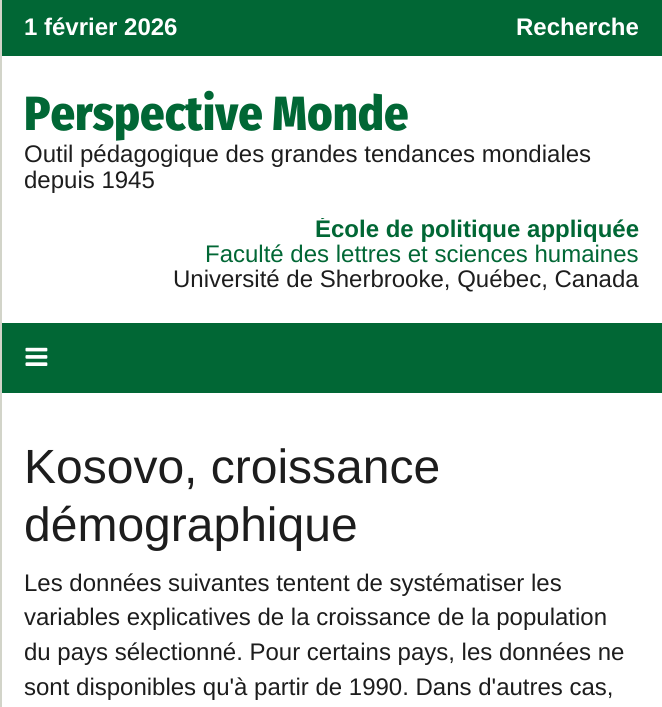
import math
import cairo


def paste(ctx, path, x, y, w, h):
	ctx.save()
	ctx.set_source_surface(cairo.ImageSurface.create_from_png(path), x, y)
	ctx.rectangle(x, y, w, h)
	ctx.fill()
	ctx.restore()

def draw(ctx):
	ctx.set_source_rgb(1, 1, 1)
	ctx.paint()
	ctx.set_source_rgb(0.824, 0.831, 0.788)
	ctx.rectangle(0, 0, 2, 707)
	ctx.fill()
	ctx.set_source_rgb(0.004, 0.404, 0.208)
	ctx.rectangle(2, 0, 660, 56)
	ctx.fill()
	ctx.select_font_face('Liberation Sans', cairo.FONT_SLANT_NORMAL, cairo.FONT_WEIGHT_BOLD)
	ctx.set_font_size(24)
	ctx.set_source_rgb(1, 1, 1)
	ctx.move_to(24, 35)
	ctx.show_text('1 février 2026')
	ctx.move_to(516, 35)
	ctx.show_text('Recherche')
	ctx.select_font_face('Fira Sans Condensed ExtraBold')
	ctx.set_font_size(48)
	ctx.set_source_rgb(0.004, 0.404, 0.208)
	ctx.move_to(24, 130)
	ctx.show_text('Perspective Monde')
	ctx.select_font_face('Liberation Sans')
	ctx.set_font_size(24)
	ctx.set_source_rgb(0.114, 0.114, 0.114)
	ctx.move_to(24, 162)
	ctx.show_text('Outil pédagogique des grandes tendances mondiales')
	ctx.move_to(24, 188)
	ctx.show_text('depuis 1945')
	ctx.save()
	ctx.rectangle(2, 218, 660, 75)
	ctx.clip()
	ctx.select_font_face('Liberation Sans', cairo.FONT_SLANT_NORMAL, cairo.FONT_WEIGHT_BOLD)
	ctx.set_source_rgb(0.004, 0.404, 0.208)
	ctx.move_to(315, 237)
	ctx.show_text('École de politique appliquée')
	ctx.restore()
	ctx.set_source_rgb(0.004, 0.404, 0.208)
	ctx.move_to(205, 262)
	ctx.show_text('Faculté des lettres et sciences humaines')
	ctx.set_source_rgb(0.114, 0.114, 0.114)
	ctx.move_to(173, 287)
	ctx.show_text('Université de Sherbrooke, Québec, Canada')
	ctx.set_source_rgb(0.004, 0.404, 0.208)
	ctx.rectangle(2, 323, 660, 70)
	ctx.fill()
	paste(ctx, 'media/1.png', 25, 347, 23, 19)
	ctx.set_font_size(48)
	ctx.set_source_rgb(0.114, 0.114, 0.114)
	ctx.move_to(24, 483)
	ctx.show_text('Kosovo, croissance')
	ctx.move_to(24, 541)
	ctx.show_text('démographique')
	ctx.set_font_size(24)
	for x, y, s in [
		(24, 591, 'Les données suivantes tentent de systématiser les'),
		(24, 625, 'variables explicatives de la croissance de la population'),
		(24, 660, 'du pays sélectionné. Pour certains pays, les données ne'),
		(24, 695, 'sont disponibles qu\'à partir de 1990. Dans d\'autres cas,'),
	]:
		ctx.move_to(x, y)
		ctx.show_text(s)


surface = cairo.ImageSurface(cairo.FORMAT_RGB24, 662, 707)
ctx = cairo.Context(surface)
options = cairo.FontOptions()
options.set_hint_metrics(cairo.HINT_METRICS_OFF)
options.set_hint_style(cairo.HINT_STYLE_NONE)
ctx.set_font_options(options)
ctx.set_miter_limit(4)
draw(ctx)
surface.write_to_png('image.png')
